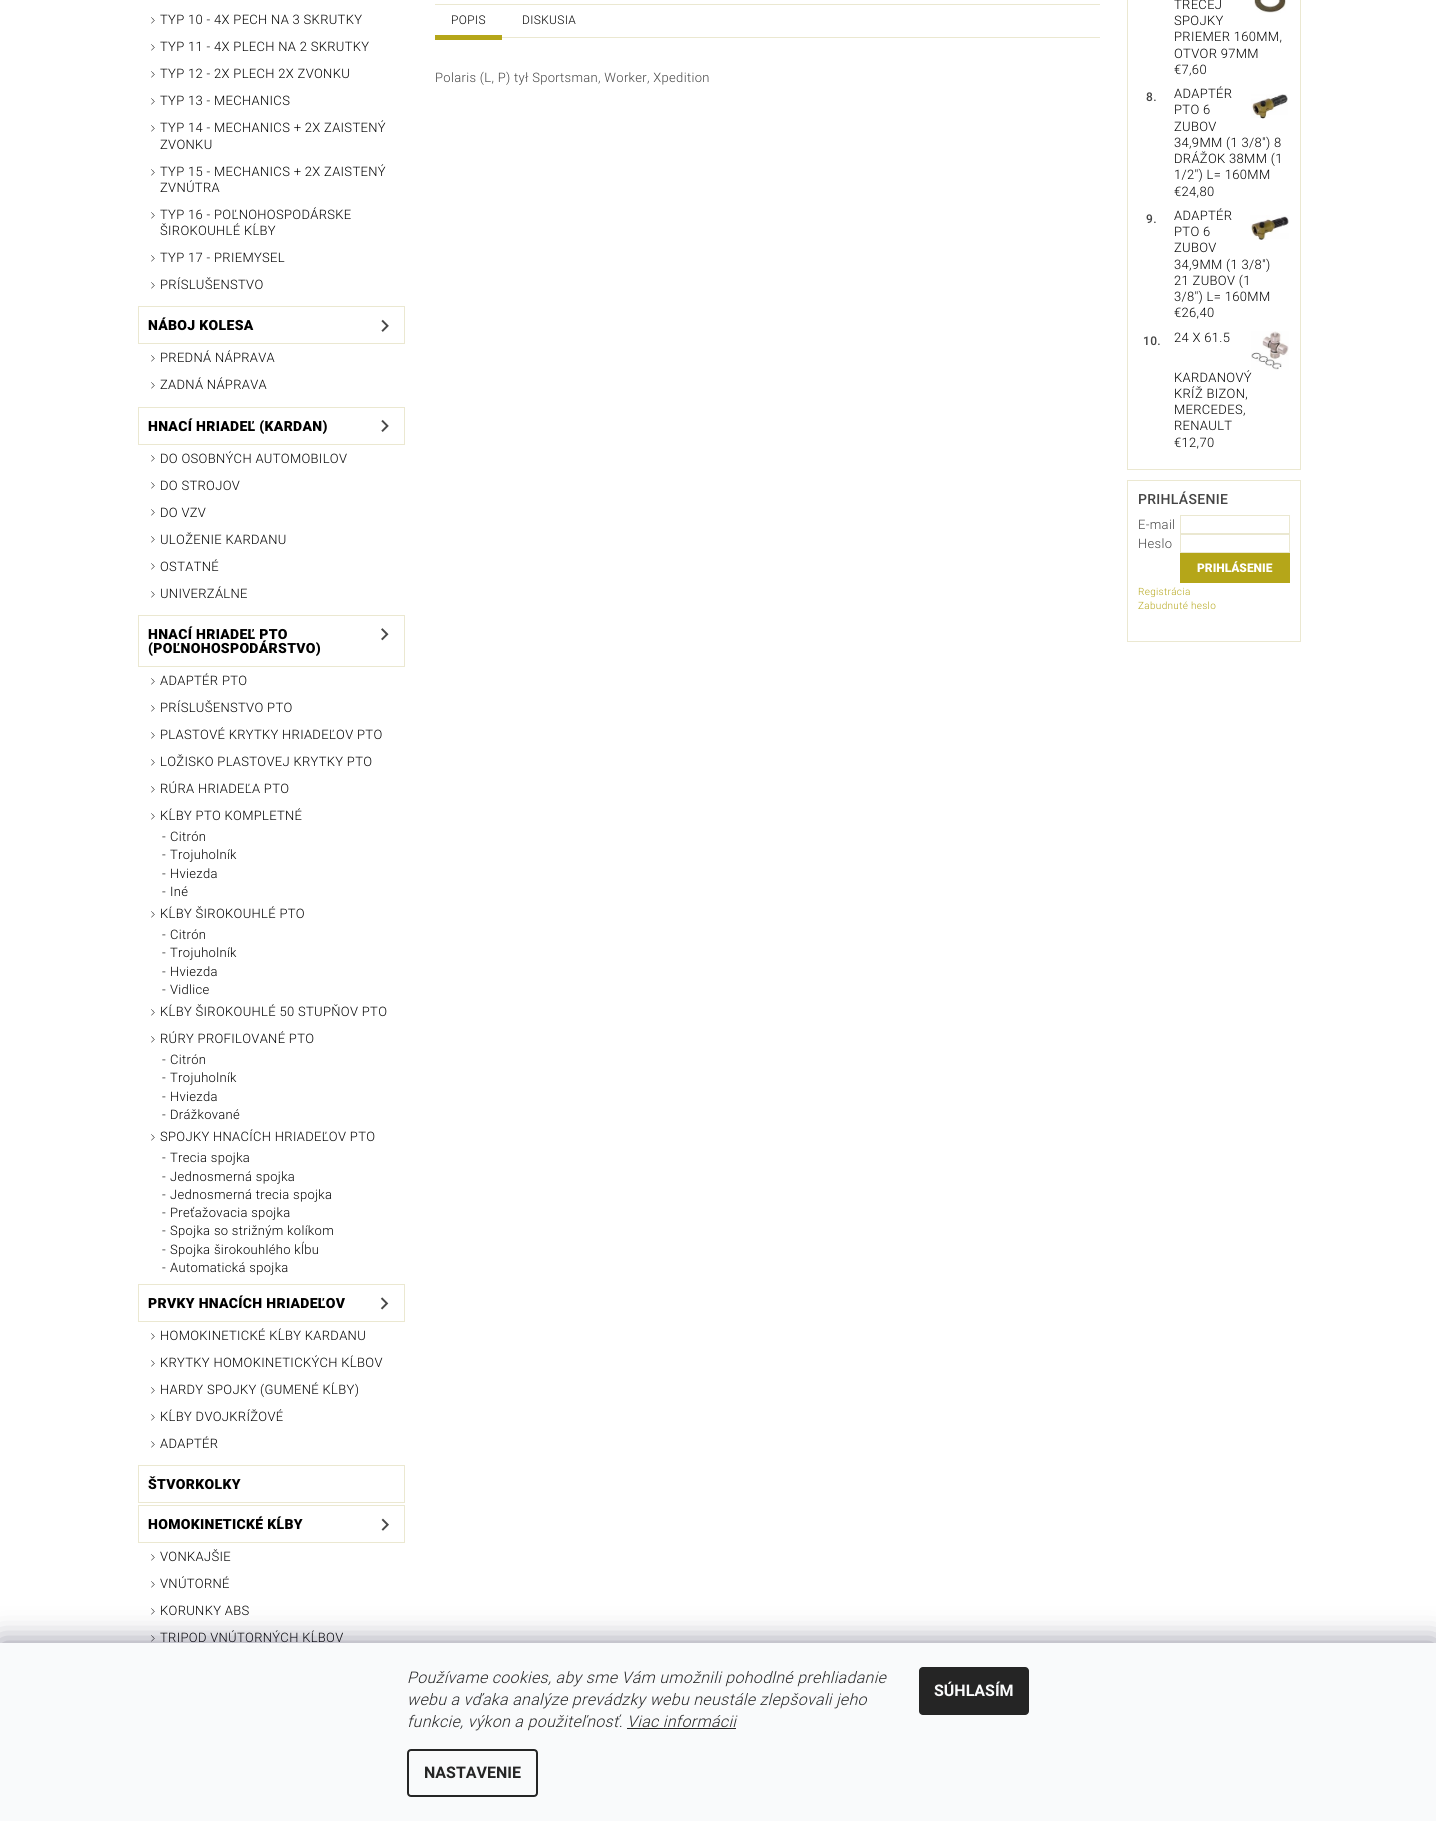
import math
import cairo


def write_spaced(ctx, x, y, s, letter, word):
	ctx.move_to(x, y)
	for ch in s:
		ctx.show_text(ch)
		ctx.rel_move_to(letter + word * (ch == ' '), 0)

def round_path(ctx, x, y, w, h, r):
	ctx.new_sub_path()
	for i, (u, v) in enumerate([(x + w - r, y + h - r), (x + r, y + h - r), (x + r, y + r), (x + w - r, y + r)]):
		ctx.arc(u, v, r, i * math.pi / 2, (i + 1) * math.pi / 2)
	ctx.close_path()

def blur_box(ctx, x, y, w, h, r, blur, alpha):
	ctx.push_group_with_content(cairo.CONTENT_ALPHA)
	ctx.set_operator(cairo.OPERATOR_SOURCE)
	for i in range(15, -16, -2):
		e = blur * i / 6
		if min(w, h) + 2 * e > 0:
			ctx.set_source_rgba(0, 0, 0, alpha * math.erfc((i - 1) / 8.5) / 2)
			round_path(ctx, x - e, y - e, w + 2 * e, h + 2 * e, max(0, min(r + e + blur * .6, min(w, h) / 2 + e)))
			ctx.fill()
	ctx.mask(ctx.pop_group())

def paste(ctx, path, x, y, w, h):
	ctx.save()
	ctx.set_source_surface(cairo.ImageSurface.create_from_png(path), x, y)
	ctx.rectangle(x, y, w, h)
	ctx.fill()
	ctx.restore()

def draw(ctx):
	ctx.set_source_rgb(1, 1, 1)
	ctx.paint()
	paste(ctx, 'media/1.png', 151, 17, 4, 7)
	ctx.select_font_face('Roboto Light')
	ctx.set_font_size(13)
	ctx.set_source_rgb(0, 0, 0)
	write_spaced(ctx, 160, 24, 'TYP 10 - 4X PECH NA 3 SKRUTKY', 0.32, 0)
	paste(ctx, 'media/1.png', 151, 44, 4, 7)
	write_spaced(ctx, 160, 51, 'TYP 11 - 4X PLECH NA 2 SKRUTKY', 0.32, 0)
	paste(ctx, 'media/1.png', 151, 71, 4, 7)
	write_spaced(ctx, 160, 78, 'TYP 12 - 2X PLECH 2X ZVONKU', 0.32, 0)
	paste(ctx, 'media/1.png', 151, 98, 4, 7)
	write_spaced(ctx, 160, 105, 'TYP 13 - MECHANICS', 0.32, 0)
	paste(ctx, 'media/1.png', 151, 125, 4, 7)
	write_spaced(ctx, 160, 132, 'TYP 14 - MECHANICS + 2X ZAISTENÝ', 0.32, 0)
	write_spaced(ctx, 160, 149, 'ZVONKU', 0.32, 0)
	paste(ctx, 'media/1.png', 151, 169, 4, 7)
	write_spaced(ctx, 160, 176, 'TYP 15 - MECHANICS + 2X ZAISTENÝ', 0.32, 0)
	write_spaced(ctx, 160, 192, 'ZVNÚTRA', 0.32, 0)
	paste(ctx, 'media/1.png', 151, 212, 4, 7)
	write_spaced(ctx, 160, 219, 'TYP 16 - POĽNOHOSPODÁRSKE', 0.32, 0)
	write_spaced(ctx, 160, 235, 'ŠIROKOUHLÉ KĹBY', 0.32, 0)
	paste(ctx, 'media/1.png', 151, 255, 4, 7)
	write_spaced(ctx, 160, 262, 'TYP 17 - PRIEMYSEL', 0.32, 0)
	paste(ctx, 'media/1.png', 151, 282, 4, 7)
	write_spaced(ctx, 160, 289, 'PRÍSLUŠENSTVO', 0.32, 0)
	ctx.rectangle(138.5, 306.5, 266, 37)
	ctx.set_source_rgb(0.918, 0.91, 0.82)
	ctx.set_line_width(1)
	ctx.stroke()
	ctx.select_font_face('Roboto Black')
	ctx.set_font_size(14)
	ctx.set_source_rgb(0, 0, 0)
	write_spaced(ctx, 148, 330, 'NÁBOJ KOLESA', 0.32, 0)
	paste(ctx, 'media/2.png', 381, 319, 8, 13)
	paste(ctx, 'media/1.png', 151, 355, 4, 7)
	ctx.select_font_face('Roboto Light')
	ctx.set_font_size(13)
	write_spaced(ctx, 160, 362, 'PREDNÁ NÁPRAVA', 0.32, 0)
	paste(ctx, 'media/1.png', 151, 382, 4, 7)
	write_spaced(ctx, 160, 389, 'ZADNÁ NÁPRAVA', 0.32, 0)
	ctx.rectangle(138.5, 407.5, 266, 37)
	ctx.set_source_rgb(0.918, 0.91, 0.82)
	ctx.stroke()
	ctx.select_font_face('Roboto Black')
	ctx.set_font_size(14)
	ctx.set_source_rgb(0, 0, 0)
	write_spaced(ctx, 148, 431, 'HNACÍ HRIADEĽ (KARDAN)', 0.32, 0)
	paste(ctx, 'media/3.png', 381, 419, 8, 13)
	paste(ctx, 'media/1.png', 151, 455, 4, 7)
	ctx.select_font_face('Roboto Light')
	ctx.set_font_size(13)
	write_spaced(ctx, 160, 463, 'DO OSOBNÝCH AUTOMOBILOV', 0.32, 0)
	paste(ctx, 'media/1.png', 151, 482, 4, 7)
	write_spaced(ctx, 160, 490, 'DO STROJOV', 0.32, 0)
	paste(ctx, 'media/1.png', 151, 509, 4, 7)
	write_spaced(ctx, 160, 517, 'DO VZV', 0.32, 0)
	paste(ctx, 'media/1.png', 151, 536, 4, 7)
	write_spaced(ctx, 160, 544, 'ULOŽENIE KARDANU', 0.32, 0)
	paste(ctx, 'media/1.png', 151, 563, 4, 7)
	write_spaced(ctx, 160, 571, 'OSTATNÉ', 0.32, 0)
	paste(ctx, 'media/1.png', 151, 591, 4, 7)
	write_spaced(ctx, 160, 598, 'UNIVERZÁLNE', 0.32, 0)
	ctx.rectangle(138.5, 615.5, 266, 51)
	ctx.set_source_rgb(0.918, 0.91, 0.82)
	ctx.stroke()
	ctx.select_font_face('Roboto Black')
	ctx.set_font_size(14)
	ctx.set_source_rgb(0, 0, 0)
	write_spaced(ctx, 148, 639, 'HNACÍ HRIADEĽ PTO', 0.32, 0)
	write_spaced(ctx, 148, 653, '(POĽNOHOSPODÁRSTVO)', 0.32, 0)
	paste(ctx, 'media/4.png', 381, 628, 8, 13)
	paste(ctx, 'media/1.png', 151, 678, 4, 7)
	ctx.select_font_face('Roboto Light')
	ctx.set_font_size(13)
	write_spaced(ctx, 160, 685, 'ADAPTÉR PTO', 0.32, 0)
	paste(ctx, 'media/1.png', 151, 705, 4, 7)
	write_spaced(ctx, 160, 712, 'PRÍSLUŠENSTVO PTO', 0.32, 0)
	paste(ctx, 'media/1.png', 151, 732, 4, 7)
	write_spaced(ctx, 160, 739, 'PLASTOVÉ KRYTKY HRIADEĽOV PTO', 0.32, 0)
	paste(ctx, 'media/1.png', 151, 759, 4, 7)
	write_spaced(ctx, 160, 766, 'LOŽISKO PLASTOVEJ KRYTKY PTO', 0.32, 0)
	paste(ctx, 'media/1.png', 151, 786, 4, 7)
	write_spaced(ctx, 160, 793, 'RÚRA HRIADEĽA PTO', 0.32, 0)
	paste(ctx, 'media/1.png', 151, 813, 4, 7)
	for x, y, s in [
		(160, 820, 'KĹBY PTO KOMPLETNÉ'),
		(162, 841, '-'),
		(170, 841, 'Citrón'),
		(162, 859, '-'),
		(170, 859, 'Trojuholník'),
		(162, 878, '-'),
		(170, 878, 'Hviezda'),
		(162, 896, '-'),
		(170, 896, 'Iné'),
	]:
		write_spaced(ctx, x, y, s, 0.32, 0)
	paste(ctx, 'media/1.png', 151, 911, 4, 7)
	for x, y, s in [
		(160, 918, 'KĹBY ŠIROKOUHLÉ PTO'),
		(162, 939, '-'),
		(170, 939, 'Citrón'),
		(162, 957, '-'),
		(170, 957, 'Trojuholník'),
		(162, 976, '-'),
		(170, 976, 'Hviezda'),
		(162, 994, '-'),
		(170, 994, 'Vidlice'),
	]:
		write_spaced(ctx, x, y, s, 0.32, 0)
	paste(ctx, 'media/1.png', 151, 1009, 4, 7)
	write_spaced(ctx, 160, 1016, 'KĹBY ŠIROKOUHLÉ 50 STUPŇOV PTO', 0.32, 0)
	paste(ctx, 'media/1.png', 151, 1036, 4, 7)
	for x, y, s in [
		(160, 1043, 'RÚRY PROFILOVANÉ PTO'),
		(162, 1064, '-'),
		(170, 1064, 'Citrón'),
		(162, 1082, '-'),
		(170, 1082, 'Trojuholník'),
		(162, 1101, '-'),
		(170, 1101, 'Hviezda'),
		(162, 1119, '-'),
		(170, 1119, 'Drážkované'),
	]:
		write_spaced(ctx, x, y, s, 0.32, 0)
	paste(ctx, 'media/1.png', 151, 1134, 4, 7)
	for x, y, s in [
		(160, 1141, 'SPOJKY HNACÍCH HRIADEĽOV PTO'),
		(162, 1162, '-'),
		(170, 1162, 'Trecia spojka'),
		(162, 1181, '-'),
		(170, 1181, 'Jednosmerná spojka'),
		(162, 1199, '-'),
		(170, 1199, 'Jednosmerná trecia spojka'),
		(162, 1217, '-'),
		(170, 1217, 'Preťažovacia spojka'),
		(162, 1235, '-'),
		(170, 1235, 'Spojka so strižným kolíkom'),
		(162, 1254, '-'),
		(170, 1254, 'Spojka širokouhlého kĺbu'),
		(162, 1272, '-'),
		(170, 1272, 'Automatická spojka'),
	]:
		write_spaced(ctx, x, y, s, 0.32, 0)
	ctx.rectangle(138.5, 1284.5, 266, 37)
	ctx.set_source_rgb(0.918, 0.91, 0.82)
	ctx.stroke()
	ctx.select_font_face('Roboto Black')
	ctx.set_font_size(14)
	ctx.set_source_rgb(0, 0, 0)
	write_spaced(ctx, 148, 1308, 'PRVKY HNACÍCH HRIADEĽOV', 0.32, 0)
	paste(ctx, 'media/5.png', 380, 1297, 9, 13)
	paste(ctx, 'media/1.png', 151, 1333, 4, 7)
	ctx.select_font_face('Roboto Light')
	ctx.set_font_size(13)
	write_spaced(ctx, 160, 1340, 'HOMOKINETICKÉ KĹBY KARDANU', 0.32, 0)
	paste(ctx, 'media/1.png', 151, 1360, 4, 7)
	write_spaced(ctx, 160, 1367, 'KRYTKY HOMOKINETICKÝCH KĹBOV', 0.32, 0)
	paste(ctx, 'media/1.png', 151, 1387, 4, 7)
	write_spaced(ctx, 160, 1394, 'HARDY SPOJKY (GUMENÉ KĹBY)', 0.32, 0)
	paste(ctx, 'media/1.png', 151, 1414, 4, 7)
	write_spaced(ctx, 160, 1421, 'KĹBY DVOJKRÍŽOVÉ', 0.32, 0)
	paste(ctx, 'media/1.png', 151, 1441, 4, 7)
	write_spaced(ctx, 160, 1448, 'ADAPTÉR', 0.32, 0)
	ctx.rectangle(138.5, 1465.5, 266, 37)
	ctx.set_source_rgb(0.918, 0.91, 0.82)
	ctx.stroke()
	ctx.select_font_face('Roboto Black')
	ctx.set_font_size(14)
	ctx.set_source_rgb(0, 0, 0)
	write_spaced(ctx, 148, 1489, 'ŠTVORKOLKY', 0.32, 0)
	ctx.rectangle(138.5, 1505.5, 266, 37)
	ctx.set_source_rgb(0.918, 0.91, 0.82)
	ctx.stroke()
	ctx.set_source_rgb(0, 0, 0)
	write_spaced(ctx, 148, 1529, 'HOMOKINETICKÉ KĹBY', 0.32, 0)
	paste(ctx, 'media/6.png', 381, 1518, 8, 13)
	paste(ctx, 'media/1.png', 151, 1554, 4, 7)
	ctx.select_font_face('Roboto Light')
	ctx.set_font_size(13)
	write_spaced(ctx, 160, 1561, 'VONKAJŠIE', 0.32, 0)
	paste(ctx, 'media/1.png', 151, 1581, 4, 7)
	write_spaced(ctx, 160, 1588, 'VNÚTORNÉ', 0.32, 0)
	paste(ctx, 'media/1.png', 151, 1608, 4, 7)
	write_spaced(ctx, 160, 1615, 'KORUNKY ABS', 0.32, 0)
	paste(ctx, 'media/1.png', 151, 1635, 4, 7)
	write_spaced(ctx, 160, 1642, 'TRIPOD VNÚTORNÝCH KĹBOV', 0.32, 0)
	ctx.set_source_rgb(0.918, 0.91, 0.82)
	ctx.rectangle(435, 4, 665, 1)
	ctx.rectangle(502, 37, 598, 1)
	ctx.fill()
	ctx.set_source_rgb(0.71, 0.651, 0.098)
	ctx.rectangle(435, 35, 67, 5)
	ctx.fill()
	ctx.set_font_size(12)
	ctx.set_source_rgb(0, 0, 0)
	write_spaced(ctx, 451, 24, 'POPIS', 0.32, 0)
	write_spaced(ctx, 522, 24, 'DISKUSIA', 0.32, 0)
	ctx.set_font_size(13)
	ctx.set_source_rgb(0.267, 0.267, 0.267)
	write_spaced(ctx, 435, 82, 'Polaris (L, P) tył Sportsman, Worker, Xpedition', 0.32, 0)
	ctx.rectangle(1127.5, -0.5, 173, 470)
	ctx.set_source_rgb(0.918, 0.91, 0.82)
	ctx.stroke()
	ctx.set_source_rgb(0, 0, 0)
	for x, y, s in [
		(1174, 9, 'TRECEJ'),
		(1174, 25, 'SPOJKY'),
		(1174, 41, 'PRIEMER 160MM,'),
		(1174, 58, 'OTVOR 97MM'),
		(1174, 74, '€7,60'),
	]:
		write_spaced(ctx, x, y, s, 0.32, 0)
	paste(ctx, 'media/7.png', 1254, 0, 32, 13)
	ctx.select_font_face('Roboto Medium')
	ctx.set_font_size(12)
	ctx.set_source_rgb(0.267, 0.267, 0.267)
	write_spaced(ctx, 1146, 101, '8.', 0.32, 0)
	ctx.select_font_face('Roboto Light')
	ctx.set_font_size(13)
	ctx.set_source_rgb(0, 0, 0)
	for x, y, s in [
		(1174, 98, 'ADAPTÉR'),
		(1174, 114, 'PTO 6'),
		(1174, 131, 'ZUBOV'),
		(1174, 147, '34,9MM (1 3/8") 8'),
		(1174, 163, 'DRÁŽOK 38MM (1'),
		(1174, 179, '1/2") L= 160MM'),
		(1174, 196, '€24,80'),
	]:
		write_spaced(ctx, x, y, s, 0.32, 0)
	paste(ctx, 'media/8.png', 1251, 94, 37, 25)
	ctx.select_font_face('Roboto Medium')
	ctx.set_font_size(12)
	ctx.set_source_rgb(0.267, 0.267, 0.267)
	write_spaced(ctx, 1146, 223, '9.', 0.32, 0)
	ctx.select_font_face('Roboto Light')
	ctx.set_font_size(13)
	ctx.set_source_rgb(0, 0, 0)
	for x, y, s in [
		(1174, 220, 'ADAPTÉR'),
		(1174, 236, 'PTO 6'),
		(1174, 252, 'ZUBOV'),
		(1174, 269, '34,9MM (1 3/8")'),
		(1174, 285, '21 ZUBOV (1'),
		(1174, 301, '3/8") L= 160MM'),
		(1174, 317, '€26,40'),
	]:
		write_spaced(ctx, x, y, s, 0.32, 0)
	paste(ctx, 'media/9.png', 1250, 215, 39, 25)
	ctx.select_font_face('Roboto Medium')
	ctx.set_font_size(12)
	ctx.set_source_rgb(0.267, 0.267, 0.267)
	write_spaced(ctx, 1143, 345, '10.', 0.32, 0)
	ctx.select_font_face('Roboto Light')
	ctx.set_font_size(13)
	ctx.set_source_rgb(0, 0, 0)
	for x, y, s in [
		(1174, 342, '24 X 61.5'),
		(1174, 382, 'KARDANOVÝ'),
		(1174, 398, 'KRÍŽ BIZON,'),
		(1174, 414, 'MERCEDES,'),
		(1174, 430, 'RENAULT'),
		(1174, 447, '€12,70'),
	]:
		write_spaced(ctx, x, y, s, 0.32, 0)
	paste(ctx, 'media/10.png', 1251, 331, 38, 39)
	ctx.rectangle(1127.5, 480.5, 173, 161)
	ctx.set_source_rgb(0.918, 0.91, 0.82)
	ctx.stroke()
	ctx.select_font_face('Roboto Medium')
	ctx.set_font_size(14)
	ctx.set_source_rgb(0.267, 0.267, 0.267)
	write_spaced(ctx, 1138, 504, 'PRIHLÁSENIE', 0.32, 0)
	ctx.select_font_face('Roboto Light')
	ctx.set_font_size(13)
	write_spaced(ctx, 1138, 529, 'E-mail', 0.32, 0)
	ctx.rectangle(1180.5, 515.5, 109, 18)
	ctx.set_source_rgb(0.918, 0.91, 0.82)
	ctx.stroke()
	ctx.set_source_rgb(0.267, 0.267, 0.267)
	write_spaced(ctx, 1138, 548, 'Heslo', 0.32, 0)
	ctx.rectangle(1180.5, 534.5, 109, 18)
	ctx.set_source_rgb(0.918, 0.91, 0.82)
	ctx.stroke()
	ctx.set_source_rgb(0.71, 0.651, 0.098)
	ctx.rectangle(1180, 553, 110, 30)
	ctx.fill()
	ctx.select_font_face('Roboto Black')
	ctx.set_font_size(12)
	ctx.set_source_rgb(1, 1, 1)
	ctx.move_to(1197, 572)
	ctx.show_text('PRIHLÁSENIE')
	ctx.select_font_face('Roboto Light')
	ctx.set_font_size(10)
	ctx.set_source_rgb(0.71, 0.651, 0.098)
	write_spaced(ctx, 1138, 595, 'Registrácia', 0.32, 0)
	write_spaced(ctx, 1138, 609, 'Zabudnuté heslo', 0.32, 0)
	ctx.set_source_rgb(0.106, 0.098, 0.224)
	blur_box(ctx, 0, 1643, 1436, 178, 0, 15, 0.5)
	ctx.set_source_rgb(0.973, 0.98, 0.984)
	ctx.rectangle(0, 1643, 1436, 178)
	ctx.fill()
	ctx.select_font_face('Roboto Light', cairo.FONT_SLANT_ITALIC)
	ctx.set_font_size(16)
	ctx.set_source_rgb(0.145, 0.145, 0.145)
	for x, y, s in [
		(407, 1683, 'Používame cookies, aby sme Vám umožnili pohodlné prehliadanie'),
		(407, 1705, 'webu a vďaka analýze prevádzky webu neustále zlepšovali jeho'),
		(407, 1727, 'funkcie, výkon a použiteľnosť. Viac informácii'),
	]:
		write_spaced(ctx, x, y, s, 0.32, 0)
	ctx.rectangle(627, 1728, 109, 1)
	ctx.fill()
	round_path(ctx, 408, 1750, 129, 46, 3)
	ctx.set_line_width(2)
	ctx.stroke()
	ctx.select_font_face('Roboto', cairo.FONT_SLANT_NORMAL, cairo.FONT_WEIGHT_BOLD)
	ctx.move_to(424, 1778)
	ctx.show_text('NASTAVENIE')
	round_path(ctx, 919, 1667, 110, 48, 4)
	ctx.fill()
	ctx.set_source_rgb(0.973, 0.98, 0.984)
	ctx.move_to(934, 1696)
	ctx.show_text('SÚHLASÍM')


surface = cairo.ImageSurface(cairo.FORMAT_RGB24, 1436, 1821)
ctx = cairo.Context(surface)
options = cairo.FontOptions()
options.set_hint_metrics(cairo.HINT_METRICS_OFF)
options.set_hint_style(cairo.HINT_STYLE_NONE)
ctx.set_font_options(options)
ctx.set_miter_limit(4)
draw(ctx)
surface.write_to_png('image.png')
